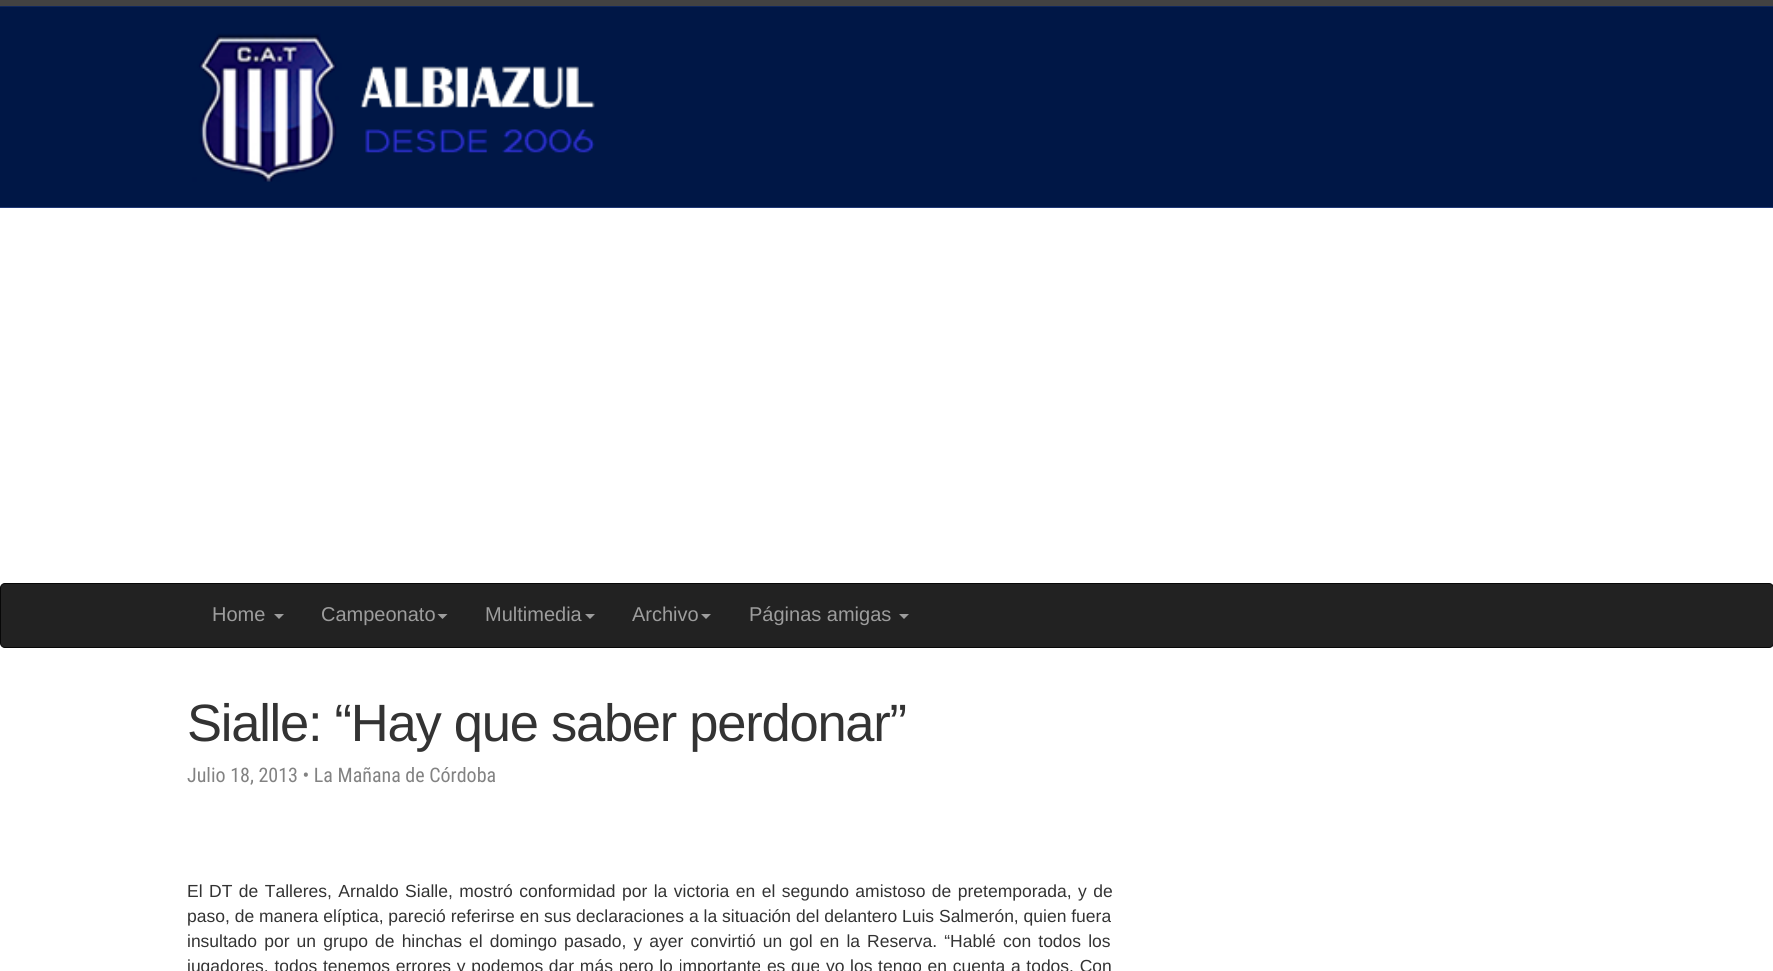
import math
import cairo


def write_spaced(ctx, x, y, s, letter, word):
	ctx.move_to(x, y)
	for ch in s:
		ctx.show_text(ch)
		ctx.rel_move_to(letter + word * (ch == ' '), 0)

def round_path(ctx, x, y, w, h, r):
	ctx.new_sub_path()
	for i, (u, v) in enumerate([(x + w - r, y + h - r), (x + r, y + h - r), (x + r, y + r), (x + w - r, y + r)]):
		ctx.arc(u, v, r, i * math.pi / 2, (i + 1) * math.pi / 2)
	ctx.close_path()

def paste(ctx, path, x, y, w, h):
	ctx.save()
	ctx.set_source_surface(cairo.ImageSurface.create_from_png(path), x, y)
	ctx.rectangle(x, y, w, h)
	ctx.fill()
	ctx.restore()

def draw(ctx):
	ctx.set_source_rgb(1, 1, 1)
	ctx.paint()
	ctx.set_source_rgb(0.255, 0.365, 0.647)
	ctx.rectangle(0, 6, 1773, 202)
	ctx.fill()
	ctx.set_source_rgb(0.259, 0.259, 0.259)
	ctx.rectangle(0, 0, 1773, 6)
	ctx.fill()
	paste(ctx, 'media/1.png', 0, 6, 1773, 202)
	ctx.set_source_rgb(0.133, 0.133, 0.133)
	round_path(ctx, 0.5, 583.5, 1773, 64, 4.5)
	ctx.fill_preserve()
	ctx.set_source_rgb(0.031, 0.031, 0.031)
	ctx.set_line_width(1)
	ctx.stroke()
	ctx.select_font_face('Liberation Sans')
	ctx.set_font_size(20)
	ctx.set_source_rgb(0.616, 0.616, 0.616)
	ctx.move_to(212, 621)
	ctx.show_text('Home')
	ctx.new_path()
	ctx.move_to(274, 614)
	ctx.line_to(284, 614)
	ctx.line_to(279, 619)
	ctx.close_path()
	ctx.fill()
	ctx.move_to(321, 621)
	ctx.show_text('Campeonato')
	ctx.new_path()
	ctx.move_to(437.5, 614)
	ctx.line_to(447.5, 614)
	ctx.line_to(442.5, 619)
	ctx.close_path()
	ctx.fill()
	ctx.move_to(485, 621)
	ctx.show_text('Multimedia')
	ctx.new_path()
	ctx.move_to(585, 614)
	ctx.line_to(595, 614)
	ctx.line_to(590, 619)
	ctx.close_path()
	ctx.fill()
	ctx.move_to(632, 621)
	ctx.show_text('Archivo')
	ctx.new_path()
	ctx.move_to(701, 614)
	ctx.line_to(711, 614)
	ctx.line_to(706, 619)
	ctx.close_path()
	ctx.fill()
	ctx.move_to(749, 621)
	ctx.show_text('Páginas amigas')
	ctx.new_path()
	ctx.move_to(899, 614)
	ctx.line_to(909, 614)
	ctx.line_to(904, 619)
	ctx.close_path()
	ctx.fill()
	ctx.set_font_size(52.5)
	ctx.set_source_rgb(0.2, 0.2, 0.2)
	write_spaced(ctx, 187, 741, 'Sialle: “Hay que saber perdonar”', -1.25, 0)
	ctx.select_font_face('Roboto Condensed')
	ctx.set_font_size(20)
	ctx.set_source_rgb(0.51, 0.51, 0.51)
	ctx.move_to(187, 782)
	ctx.show_text('Julio 18, 2013 • La Mañana de Córdoba')
	ctx.select_font_face('Liberation Sans')
	ctx.set_font_size(17.5)
	ctx.set_source_rgb(0.2, 0.2, 0.2)
	write_spaced(ctx, 187, 897, 'El DT de Talleres, Arnaldo Sialle, mostró conformidad por la victoria en el segundo amistoso de pretemporada, y de', 0, 1.6)
	ctx.move_to(187, 922)
	ctx.show_text('paso, de manera elíptica, pareció referirse en sus declaraciones a la situación del delantero Luis Salmerón, quien fuera')
	write_spaced(ctx, 187, 947, 'insultado por un grupo de hinchas el domingo pasado, y ayer convirtió un gol en la Reserva. “Hablé con todos los', 0, 2.25)
	write_spaced(ctx, 187, 972, 'jugadores, todos tenemos errores y podemos dar más pero lo importante es que yo los tengo en cuenta a todos. Con', 0, 0.8)


surface = cairo.ImageSurface(cairo.FORMAT_RGB24, 1773, 971)
ctx = cairo.Context(surface)
options = cairo.FontOptions()
options.set_hint_metrics(cairo.HINT_METRICS_OFF)
options.set_hint_style(cairo.HINT_STYLE_NONE)
ctx.set_font_options(options)
ctx.set_miter_limit(4)
draw(ctx)
surface.write_to_png('image.png')
